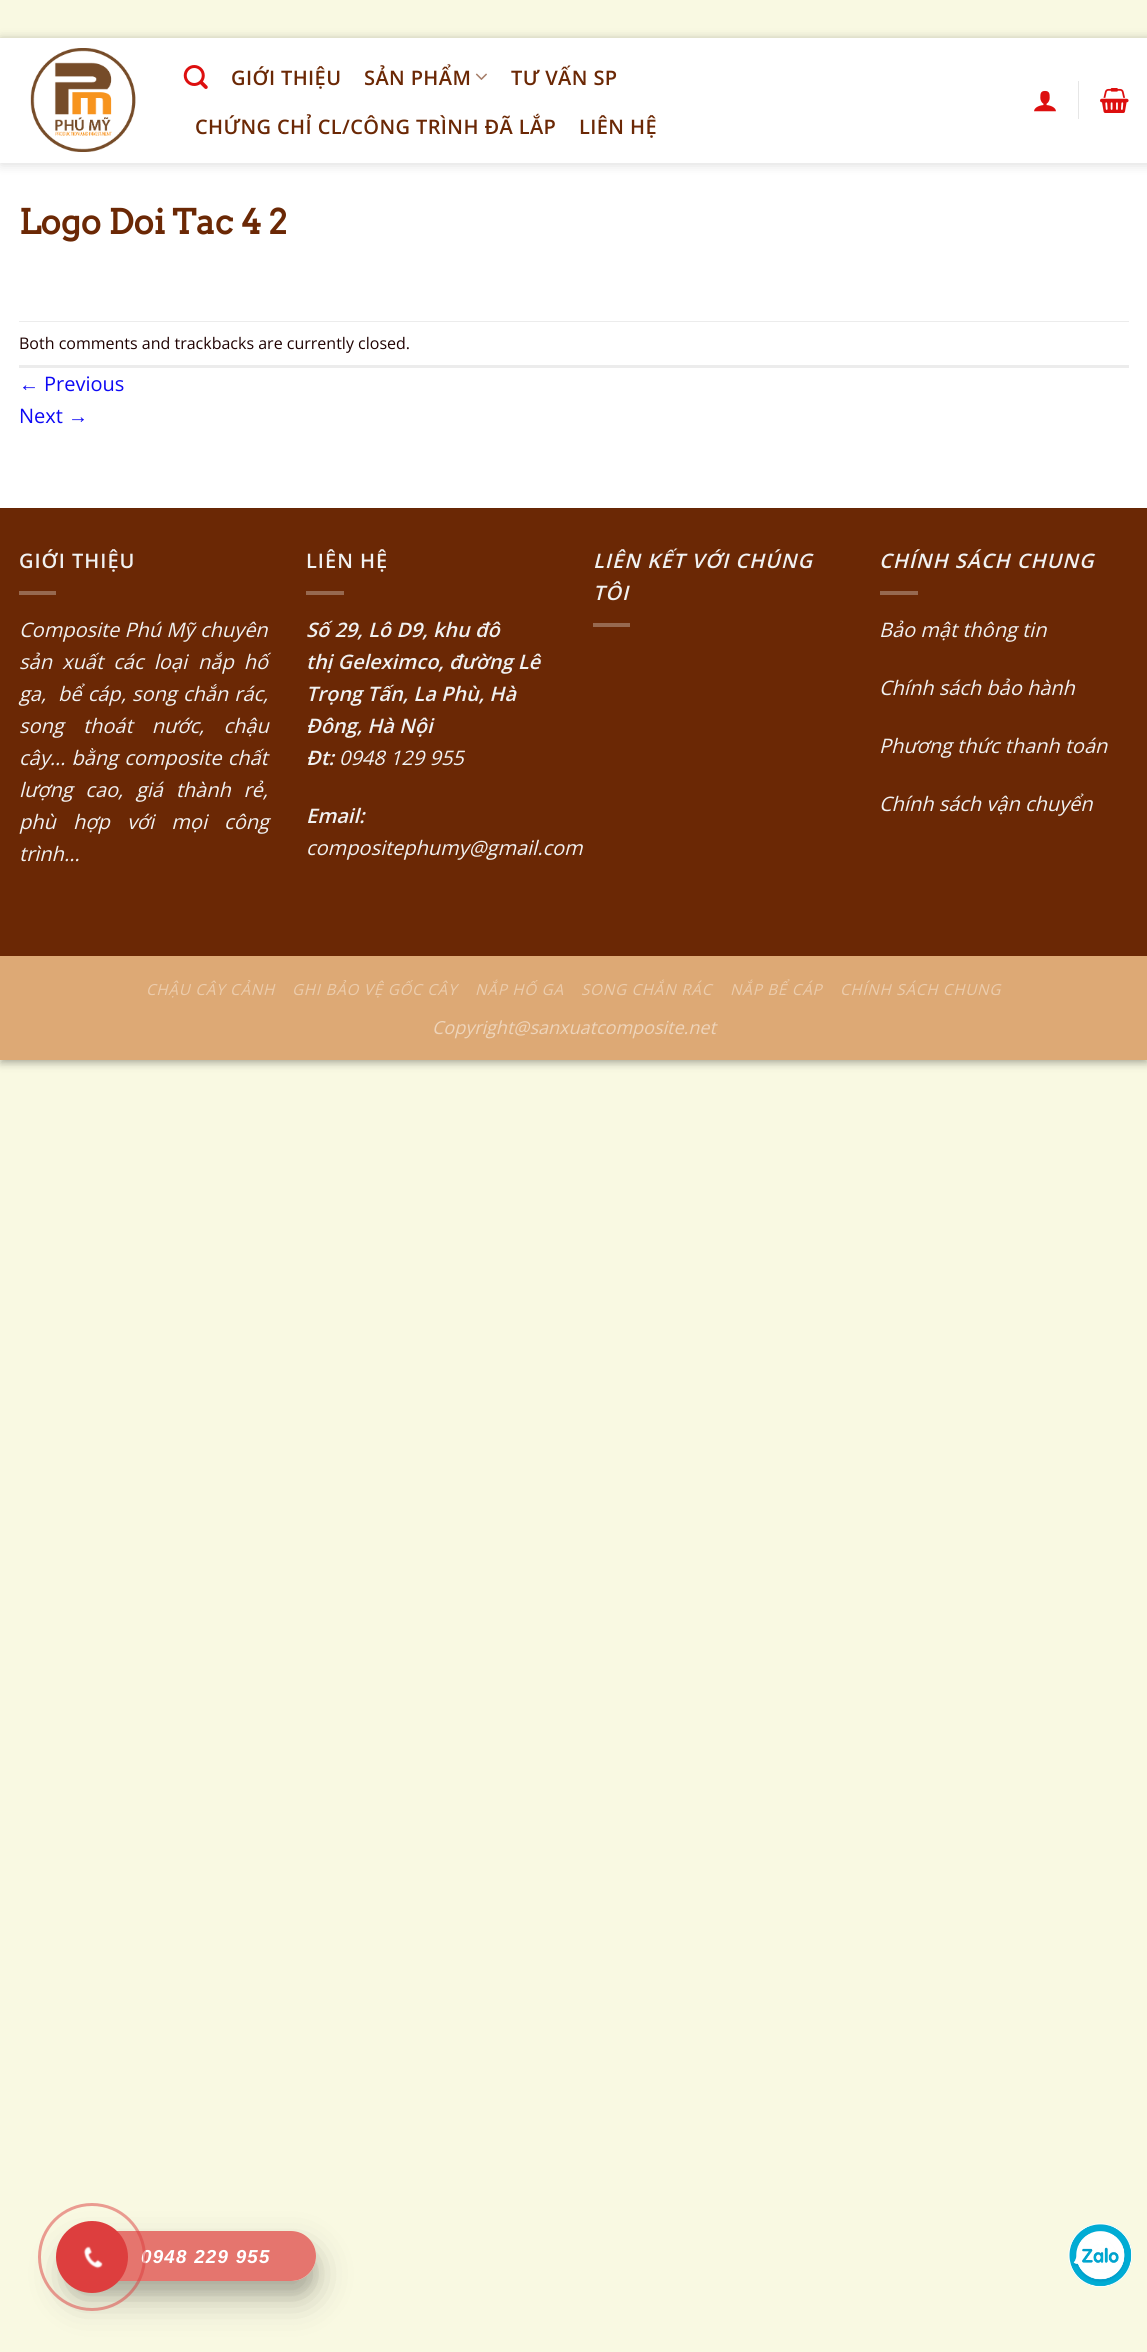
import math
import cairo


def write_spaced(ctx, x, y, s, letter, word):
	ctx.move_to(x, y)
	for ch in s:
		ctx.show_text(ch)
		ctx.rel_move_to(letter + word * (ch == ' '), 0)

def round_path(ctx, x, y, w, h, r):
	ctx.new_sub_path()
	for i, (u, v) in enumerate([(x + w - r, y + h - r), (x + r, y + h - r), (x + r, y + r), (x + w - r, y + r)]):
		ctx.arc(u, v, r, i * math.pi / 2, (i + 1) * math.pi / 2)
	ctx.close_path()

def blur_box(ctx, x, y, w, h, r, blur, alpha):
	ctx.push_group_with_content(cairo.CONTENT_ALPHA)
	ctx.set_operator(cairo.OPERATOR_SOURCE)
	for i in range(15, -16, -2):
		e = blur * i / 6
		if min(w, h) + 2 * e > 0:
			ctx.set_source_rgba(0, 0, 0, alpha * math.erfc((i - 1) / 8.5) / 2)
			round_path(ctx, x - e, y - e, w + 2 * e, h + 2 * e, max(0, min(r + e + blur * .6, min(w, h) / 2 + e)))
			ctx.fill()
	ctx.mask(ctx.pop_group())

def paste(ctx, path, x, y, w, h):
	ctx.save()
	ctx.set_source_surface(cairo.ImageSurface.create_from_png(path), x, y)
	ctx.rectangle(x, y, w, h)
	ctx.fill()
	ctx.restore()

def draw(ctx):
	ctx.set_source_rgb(0.973, 0.973, 0.886)
	ctx.paint()
	ctx.set_source_rgb(0, 0, 0)
	blur_box(ctx, 0, 41, 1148, 1023, 0, 4, 0.23)
	blur_box(ctx, 5, 46, 1138, 1013, 0, 4, 0.16)
	ctx.set_source_rgb(1, 1, 1)
	ctx.rectangle(0, 38, 1147, 470)
	ctx.fill()
	ctx.save()
	ctx.set_fill_rule(cairo.FILL_RULE_EVEN_ODD)
	ctx.new_path()
	ctx.move_to(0, 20)
	ctx.line_to(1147, 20)
	ctx.line_to(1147, 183)
	ctx.line_to(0, 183)
	ctx.close_path()
	ctx.move_to(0, 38)
	ctx.line_to(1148, 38)
	ctx.line_to(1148, 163)
	ctx.line_to(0, 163)
	ctx.close_path()
	ctx.clip()
	ctx.set_source_rgb(0, 0, 0)
	blur_box(ctx, 1, 39, 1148, 125, 0, 6, 0.15)
	ctx.restore()
	ctx.set_source_rgba(1, 1, 1, 0.9)
	ctx.rectangle(0, 162, 1147, 1)
	ctx.fill()
	paste(ctx, 'media/1.png', 30, 48, 106, 104)
	paste(ctx, 'media/2.png', 183, 65, 25, 24)
	ctx.select_font_face('Open Sans SemiBold')
	ctx.set_font_size(20)
	ctx.set_source_rgb(0.42, 0.157, 0.02)
	write_spaced(ctx, 231, 85, 'GIỚI THIỆU', 0.4, 0)
	write_spaced(ctx, 364, 85, 'SẢN PHẨM', 0.4, 0)
	paste(ctx, 'media/3.png', 475, 73, 12, 7)
	for x, y, s in [
		(511, 85, 'TƯ VẤN SP'),
		(195, 134, 'CHỨNG CHỈ CL/CÔNG TRÌNH ĐÃ LẮP'),
		(579, 134, 'LIÊN HỆ'),
	]:
		write_spaced(ctx, x, y, s, 0.4, 0)
	paste(ctx, 'media/4.png', 1034, 90, 22, 22)
	ctx.set_source_rgb(0.902, 0.902, 0.902)
	ctx.rectangle(1078, 81, 1, 38)
	ctx.fill()
	paste(ctx, 'media/5.png', 1100, 88, 29, 25)
	ctx.select_font_face('Arvo', cairo.FONT_SLANT_NORMAL, cairo.FONT_WEIGHT_BOLD)
	ctx.set_font_size(34)
	ctx.set_source_rgb(0.42, 0.157, 0.02)
	ctx.move_to(19, 234)
	ctx.show_text('Logo Doi Tac 4 2')
	ctx.set_source_rgb(0.925, 0.925, 0.925)
	ctx.rectangle(19, 321, 1110, 1)
	ctx.fill()
	ctx.rectangle(19, 365, 1110, 3)
	ctx.fill()
	ctx.select_font_face('Open Sans')
	ctx.set_font_size(16)
	ctx.set_source_rgb(0.125, 0.012, 0.012)
	ctx.move_to(19, 349)
	ctx.show_text('Both comments and trackbacks are currently closed.')
	ctx.select_font_face('Liberation Sans')
	ctx.set_font_size(20)
	ctx.set_source_rgb(0.055, 0.039, 0.957)
	ctx.move_to(19, 391)
	ctx.show_text('←')
	ctx.select_font_face('Open Sans')
	ctx.move_to(44, 391)
	ctx.show_text('Previous')
	ctx.move_to(19, 423)
	ctx.show_text('Next')
	ctx.select_font_face('Liberation Sans')
	ctx.move_to(68, 423)
	ctx.show_text('→')
	ctx.set_source_rgb(0.42, 0.157, 0.02)
	ctx.rectangle(0, 509, 1147, 447)
	ctx.fill()
	ctx.set_source_rgb(0.4, 0.149, 0.02)
	ctx.rectangle(0, 508, 1147, 1)
	ctx.fill()
	ctx.select_font_face('Open Sans SemiBold')
	ctx.set_source_rgb(0.945, 0.945, 0.945)
	write_spaced(ctx, 19, 568, 'GIỚI THIỆU', 1, 0)
	ctx.set_source_rgb(0.592, 0.412, 0.314)
	ctx.rectangle(19, 591, 37, 4)
	ctx.fill()
	ctx.select_font_face('Open Sans', cairo.FONT_SLANT_ITALIC)
	ctx.set_source_rgb(0.945, 0.945, 0.945)
	ctx.move_to(19, 637)
	ctx.show_text('Composite Phú Mỹ')
	ctx.move_to(200, 637)
	ctx.show_text('chuyên')
	write_spaced(ctx, 19, 669, 'sản xuất các loại', 0, 5)
	write_spaced(ctx, 198, 669, 'nắp hố', 0, 5)
	ctx.move_to(19, 701)
	ctx.show_text('ga,')
	write_spaced(ctx, 58, 701, 'bể cáp', 0, 1)
	ctx.move_to(121, 701)
	ctx.show_text(',')
	write_spaced(ctx, 132, 701, 'song chắn rác', 0, 1)
	ctx.move_to(263, 701)
	ctx.show_text(',')
	write_spaced(ctx, 19, 733, 'song thoát nước, chậu', 0, 14)
	write_spaced(ctx, 19, 765, 'cây… bằng composite chất', 0, 1)
	write_spaced(ctx, 19, 797, 'lượng cao, giá thành rẻ,', 0, 7.5)
	write_spaced(ctx, 19, 829, 'phù hợp với mọi công', 0, 12)
	ctx.move_to(19, 861)
	ctx.show_text('trình…')
	ctx.select_font_face('Open Sans SemiBold')
	write_spaced(ctx, 306, 568, 'LIÊN HỆ', 1, 0)
	ctx.set_source_rgb(0.592, 0.412, 0.314)
	ctx.rectangle(306, 591, 38, 4)
	ctx.fill()
	ctx.select_font_face('Open Sans SemiBold', cairo.FONT_SLANT_ITALIC)
	ctx.set_source_rgb(0.945, 0.945, 0.945)
	for x, y, s in [
		(306, 637, 'Số 29, Lô D9, khu đô'),
		(306, 669, 'thị Geleximco, đường Lê'),
		(306, 701, 'Trọng Tấn, La Phù, Hà'),
		(306, 733, 'Đông, Hà Nội'),
		(306, 765, 'Đt:'),
	]:
		ctx.move_to(x, y)
		ctx.show_text(s)
	ctx.select_font_face('Open Sans', cairo.FONT_SLANT_ITALIC)
	ctx.move_to(339, 765)
	ctx.show_text('0948 129 955')
	ctx.select_font_face('Open Sans SemiBold', cairo.FONT_SLANT_ITALIC)
	ctx.move_to(306, 823)
	ctx.show_text('Email:')
	ctx.select_font_face('Open Sans', cairo.FONT_SLANT_ITALIC)
	ctx.move_to(306, 855)
	ctx.show_text('compositephumy@gmail.com')
	ctx.select_font_face('Open Sans SemiBold', cairo.FONT_SLANT_ITALIC)
	write_spaced(ctx, 593, 568, 'LIÊN KẾT VỚI CHÚNG', 1, 0)
	write_spaced(ctx, 593, 600, 'TÔI', 1, 0)
	ctx.set_source_rgb(0.592, 0.412, 0.314)
	ctx.rectangle(593, 623, 37, 4)
	ctx.fill()
	ctx.set_source_rgb(0.945, 0.945, 0.945)
	write_spaced(ctx, 879, 568, 'CHÍNH SÁCH CHUNG', 1, 0)
	ctx.set_source_rgb(0.592, 0.412, 0.314)
	ctx.rectangle(880, 591, 38, 4)
	ctx.fill()
	ctx.select_font_face('Open Sans', cairo.FONT_SLANT_ITALIC)
	ctx.set_source_rgb(0.945, 0.945, 0.945)
	for x, y, s in [
		(879, 637, 'Bảo mật thông tin'),
		(879, 695, 'Chính sách bảo hành'),
		(879, 753, 'Phương thức thanh toán'),
		(879, 811, 'Chính sách vận chuyển'),
	]:
		ctx.move_to(x, y)
		ctx.show_text(s)
	ctx.set_source_rgb(0.867, 0.663, 0.459)
	ctx.rectangle(0, 956, 1147, 104)
	ctx.fill()
	ctx.set_font_size(15.25)
	ctx.set_source_rgb(0.922, 0.8, 0.675)
	for x, y, s in [
		(146, 995, 'CHẬU CÂY CẢNH'),
		(292, 995, 'GHI BẢO VỆ GỐC CÂY'),
		(475, 995, 'NẮP HỐ GA'),
		(581, 995, 'SONG CHẮN RÁC'),
		(730, 995, 'NẮP BỂ CÁP'),
		(840, 995, 'CHÍNH SÁCH CHUNG'),
	]:
		write_spaced(ctx, x, y, s, 0.75, 0)
	ctx.set_font_size(18)
	ctx.set_source_rgb(0.933, 0.831, 0.729)
	ctx.move_to(432, 1034)
	ctx.show_text('Copyright@sanxuatcomposite.net')
	ctx.save()
	ctx.set_fill_rule(cairo.FILL_RULE_EVEN_ODD)
	ctx.new_path()
	ctx.move_to(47, 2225)
	ctx.line_to(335, 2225)
	ctx.line_to(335, 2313)
	ctx.line_to(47, 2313)
	ctx.close_path()
	ctx.move_to(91, 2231)
	ctx.line_to(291, 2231)
	ctx.curve_to(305, 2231, 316, 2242, 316, 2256)
	ctx.curve_to(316, 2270, 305, 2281, 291, 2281)
	ctx.line_to(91, 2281)
	ctx.curve_to(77, 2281, 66, 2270, 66, 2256)
	ctx.curve_to(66, 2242, 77, 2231, 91, 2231)
	ctx.close_path()
	ctx.clip()
	ctx.set_source_rgb(0, 0, 0)
	blur_box(ctx, 66, 2244, 250, 50, 25, 6, 0.1)
	ctx.restore()
	ctx.save()
	ctx.set_fill_rule(cairo.FILL_RULE_EVEN_ODD)
	ctx.new_path()
	ctx.move_to(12, 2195)
	ctx.line_to(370, 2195)
	ctx.line_to(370, 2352)
	ctx.line_to(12, 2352)
	ctx.close_path()
	ctx.move_to(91, 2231)
	ctx.line_to(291, 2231)
	ctx.curve_to(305, 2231, 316, 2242, 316, 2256)
	ctx.curve_to(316, 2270, 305, 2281, 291, 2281)
	ctx.line_to(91, 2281)
	ctx.curve_to(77, 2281, 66, 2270, 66, 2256)
	ctx.curve_to(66, 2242, 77, 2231, 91, 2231)
	ctx.close_path()
	ctx.clip()
	ctx.set_source_rgb(0, 0, 0)
	blur_box(ctx, 66, 2249, 250, 50, 25, 17.5, 0.25)
	ctx.restore()
	ctx.set_source_rgba(0.867, 0.243, 0.243, 0.7)
	round_path(ctx, 66, 2231, 250, 50, 25)
	ctx.fill()
	ctx.select_font_face('Liberation Sans', cairo.FONT_SLANT_ITALIC, cairo.FONT_WEIGHT_BOLD)
	ctx.set_font_size(18.75)
	ctx.set_source_rgb(1, 1, 1)
	write_spaced(ctx, 141, 2263, '0948 229 955', 1.25, 0)
	ctx.new_path()
	ctx.arc(92, 2257, 52.5, 0, 2 * math.pi)
	ctx.set_source_rgba(0.867, 0.243, 0.243, 0.5)
	ctx.set_line_width(3)
	ctx.stroke()
	ctx.set_source_rgb(0.867, 0.243, 0.243)
	ctx.arc(92, 2257, 36, 0, 2 * math.pi)
	ctx.fill()
	paste(ctx, 'media/6.png', 83, 2246, 20, 23)
	paste(ctx, 'media/7.png', 1068, 2223, 64, 64)


surface = cairo.ImageSurface(cairo.FORMAT_RGB24, 1147, 2352)
ctx = cairo.Context(surface)
options = cairo.FontOptions()
options.set_hint_metrics(cairo.HINT_METRICS_OFF)
options.set_hint_style(cairo.HINT_STYLE_NONE)
ctx.set_font_options(options)
ctx.set_miter_limit(4)
draw(ctx)
surface.write_to_png('image.png')
